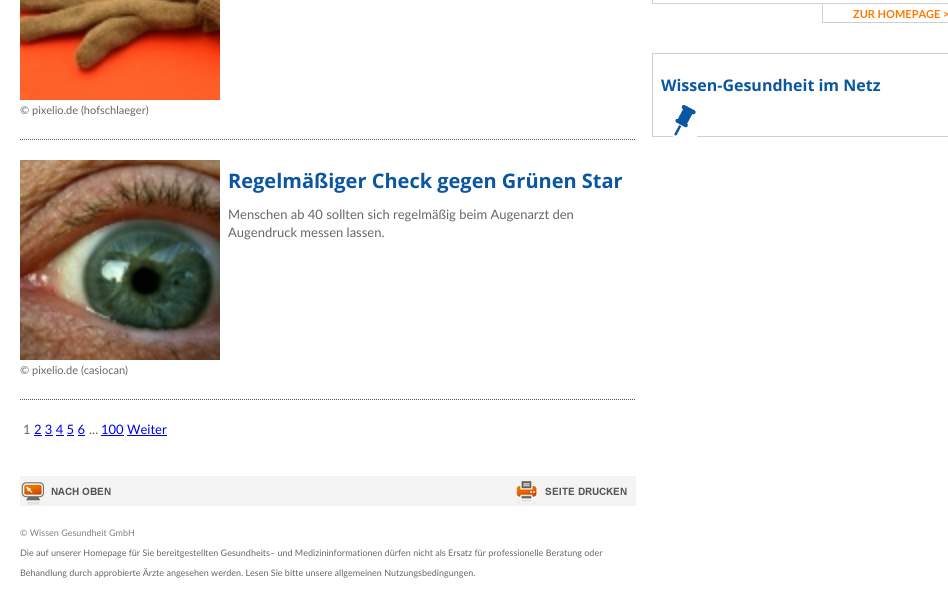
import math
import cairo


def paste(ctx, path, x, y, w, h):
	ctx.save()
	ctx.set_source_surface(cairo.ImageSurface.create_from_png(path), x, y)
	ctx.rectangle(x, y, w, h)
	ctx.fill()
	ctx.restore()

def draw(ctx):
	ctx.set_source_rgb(1, 1, 1)
	ctx.paint()
	ctx.rectangle(652.5, -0.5, 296, 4)
	ctx.set_source_rgb(0.816, 0.816, 0.816)
	ctx.set_line_width(1)
	ctx.stroke()
	ctx.rectangle(822, 22, 126, 1)
	ctx.fill()
	ctx.rectangle(822, 4, 1, 19)
	ctx.fill()
	ctx.select_font_face('Lato', cairo.FONT_SLANT_NORMAL, cairo.FONT_WEIGHT_BOLD)
	ctx.set_font_size(11)
	ctx.set_source_rgb(1, 0.471, 0)
	ctx.move_to(853, 18)
	ctx.show_text('ZUR HOMEPAGE >')
	ctx.rectangle(652.5, 53.5, 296, 83)
	ctx.set_source_rgb(0.816, 0.816, 0.816)
	ctx.stroke()
	ctx.select_font_face('Open Sans', cairo.FONT_SLANT_NORMAL, cairo.FONT_WEIGHT_BOLD)
	ctx.set_font_size(16)
	ctx.set_source_rgb(0.043, 0.337, 0.639)
	ctx.move_to(661, 91)
	ctx.show_text('Wissen-Gesundheit im Netz')
	paste(ctx, 'media/1.png', 673, 105, 24, 32)
	ctx.new_path()
	ctx.move_to(20, 139.5)
	ctx.line_to(636, 139.5)
	ctx.set_source_rgb(0.337, 0.337, 0.337)
	ctx.set_dash([1, 1])
	ctx.stroke()
	paste(ctx, 'media/2.png', 20, 0, 200, 100)
	ctx.select_font_face('Lato')
	ctx.set_font_size(11)
	ctx.set_source_rgb(0.4, 0.4, 0.4)
	ctx.move_to(20, 114)
	ctx.show_text('© pixelio.de (hofschlaeger)')
	ctx.new_path()
	ctx.move_to(20, 399.5)
	ctx.line_to(636, 399.5)
	ctx.set_source_rgb(0.337, 0.337, 0.337)
	ctx.stroke()
	ctx.select_font_face('Open Sans', cairo.FONT_SLANT_NORMAL, cairo.FONT_WEIGHT_BOLD)
	ctx.set_font_size(20)
	ctx.set_source_rgb(0.043, 0.337, 0.639)
	ctx.move_to(228, 188)
	ctx.show_text('Regelmäßiger Check gegen Grünen Star')
	ctx.select_font_face('Lato')
	ctx.set_font_size(13)
	ctx.set_source_rgb(0.4, 0.4, 0.4)
	ctx.move_to(228, 219)
	ctx.show_text('Menschen ab 40 sollten sich regelmäßig beim Augenarzt den')
	ctx.move_to(228, 237)
	ctx.show_text('Augendruck messen lassen.')
	paste(ctx, 'media/3.png', 20, 160, 200, 200)
	ctx.set_font_size(11)
	ctx.move_to(20, 374)
	ctx.show_text('© pixelio.de (casiocan)')
	ctx.set_font_size(13)
	ctx.move_to(23, 434)
	ctx.show_text('1')
	ctx.set_source_rgb(0, 0, 0.933)
	ctx.move_to(34, 434)
	ctx.show_text('2 3 4 5 6')
	ctx.rectangle(34, 435, 8, 1)
	ctx.fill()
	ctx.set_source_rgb(0.4, 0.4, 0.4)
	ctx.move_to(89, 434)
	ctx.show_text('...')
	ctx.set_source_rgb(0, 0, 0.933)
	ctx.move_to(101, 434)
	ctx.show_text('100 Weiter')
	ctx.rectangle(101, 435, 23, 1)
	ctx.rectangle(45, 435, 8, 1)
	ctx.rectangle(56, 435, 8, 1)
	ctx.rectangle(67, 435, 7, 1)
	ctx.rectangle(78, 435, 7, 1)
	ctx.rectangle(127, 435, 40, 1)
	ctx.fill()
	ctx.set_source_rgb(0.957, 0.957, 0.957)
	ctx.rectangle(20, 476, 616, 30)
	ctx.fill()
	paste(ctx, 'media/4.png', 21, 482, 90, 24)
	paste(ctx, 'media/5.png', 516, 481, 111, 24)
	ctx.set_source_rgb(1, 1, 1)
	ctx.rectangle(20, 476, 1, 1)
	ctx.fill()
	ctx.rectangle(635, 476, 1, 1)
	ctx.fill()
	ctx.set_font_size(9)
	ctx.set_source_rgb(0.498, 0.498, 0.498)
	ctx.move_to(20, 536)
	ctx.show_text('© Wissen Gesundheit GmbH')
	ctx.set_source_rgb(0.4, 0.4, 0.4)
	ctx.move_to(20, 556)
	ctx.show_text('Die auf unserer Homepage für Sie bereitgestellten Gesundheits– und Medizininformationen dürfen nicht als Ersatz für professionelle Beratung oder')
	ctx.move_to(20, 576)
	ctx.show_text('Behandlung durch approbierte Ärzte angesehen werden. Lesen Sie bitte unsere allgemeinen Nutzungsbedingungen.')


surface = cairo.ImageSurface(cairo.FORMAT_RGB24, 948, 606)
ctx = cairo.Context(surface)
options = cairo.FontOptions()
options.set_hint_metrics(cairo.HINT_METRICS_OFF)
options.set_hint_style(cairo.HINT_STYLE_NONE)
ctx.set_font_options(options)
ctx.set_miter_limit(4)
draw(ctx)
surface.write_to_png('image.png')
